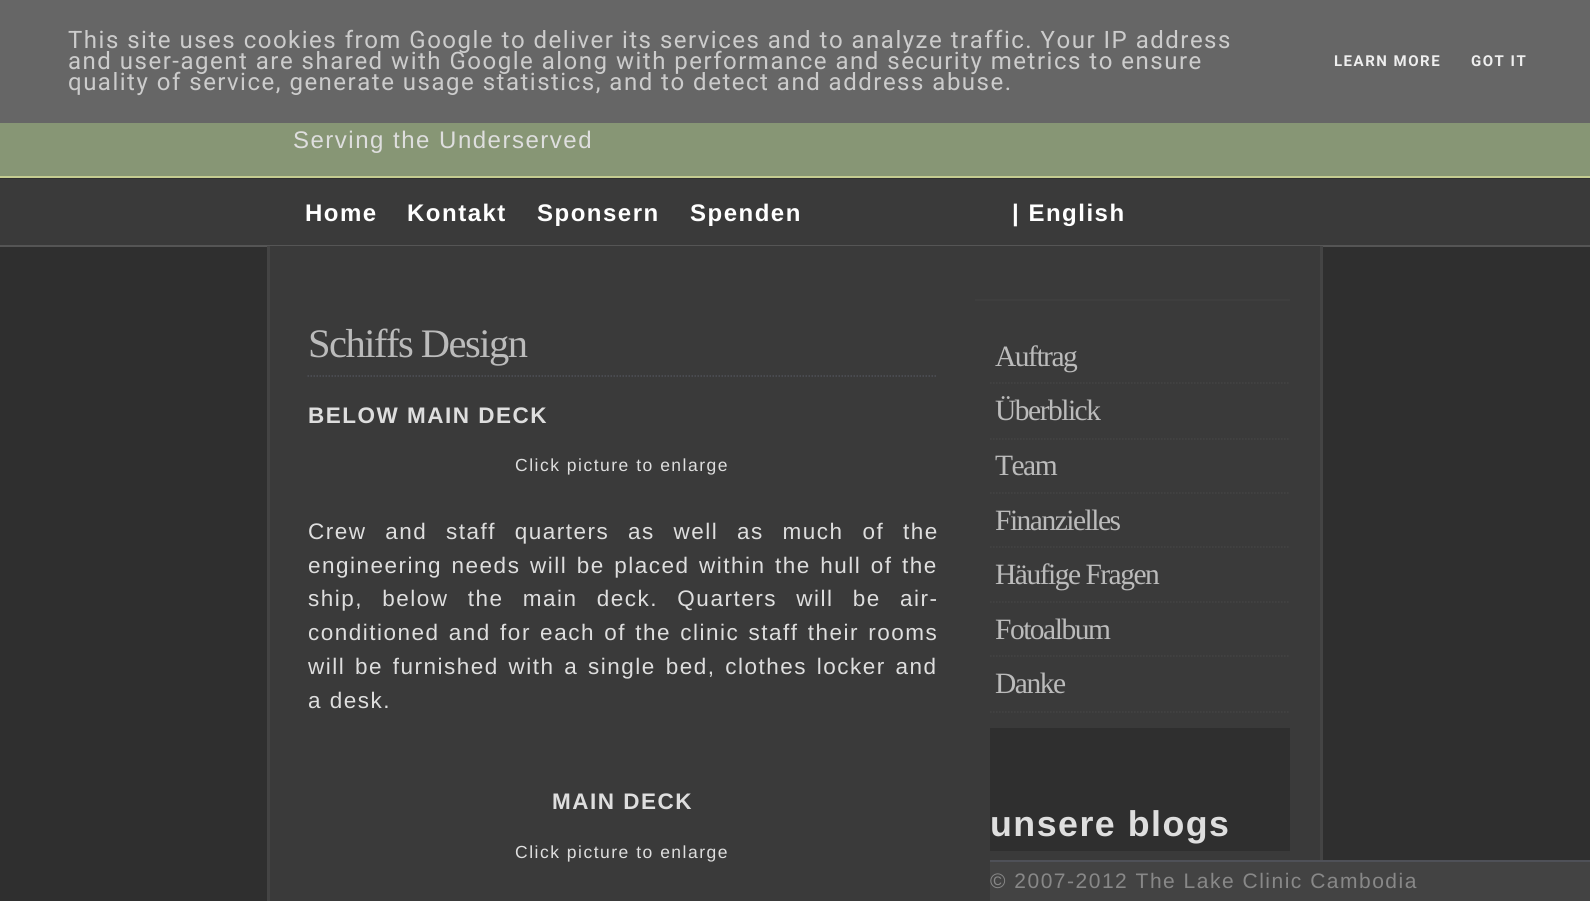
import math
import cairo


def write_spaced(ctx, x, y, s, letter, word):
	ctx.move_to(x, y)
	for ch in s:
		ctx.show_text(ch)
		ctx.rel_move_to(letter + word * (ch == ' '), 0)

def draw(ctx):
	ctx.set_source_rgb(0.184, 0.184, 0.184)
	ctx.paint()
	ctx.set_source_rgb(0.4, 0.4, 0.4)
	ctx.rectangle(0, 0, 1590, 123)
	ctx.fill()
	ctx.select_font_face('Roboto')
	ctx.set_font_size(24)
	ctx.set_source_rgb(0.8, 0.8, 0.8)
	for x, y, s in [
		(68, 48, 'This site uses cookies from Google to deliver its services and to analyze traffic. Your IP address'),
		(68, 69, 'and user-agent are shared with Google along with performance and security metrics to ensure'),
		(68, 90, 'quality of service, generate usage statistics, and to detect and address abuse.'),
	]:
		write_spaced(ctx, x, y, s, 1.5, 0)
	ctx.select_font_face('Roboto', cairo.FONT_SLANT_NORMAL, cairo.FONT_WEIGHT_BOLD)
	ctx.set_font_size(15)
	ctx.set_source_rgb(0.933, 0.933, 0.933)
	write_spaced(ctx, 1334, 66, 'LEARN MORE', 1.5, 0)
	write_spaced(ctx, 1471, 66, 'GOT IT', 1.5, 0)
	ctx.set_source_rgb(0.529, 0.588, 0.459)
	ctx.rectangle(0, 123, 1590, 53)
	ctx.fill()
	ctx.set_source_rgb(0.769, 0.8, 0.569)
	ctx.rectangle(0, 176, 1590, 2)
	ctx.fill()
	ctx.select_font_face('Liberation Sans')
	ctx.set_font_size(24)
	ctx.set_source_rgb(0.871, 0.871, 0.871)
	write_spaced(ctx, 293, 148, 'Serving the Underserved', 1.5, 0)
	ctx.set_source_rgb(0.227, 0.227, 0.227)
	ctx.rectangle(0, 179, 1590, 66)
	ctx.fill()
	ctx.set_source_rgb(0.333, 0.333, 0.333)
	ctx.rectangle(0, 245, 1590, 2)
	ctx.fill()
	ctx.select_font_face('Liberation Sans', cairo.FONT_SLANT_NORMAL, cairo.FONT_WEIGHT_BOLD)
	ctx.set_source_rgb(1, 1, 1)
	for x, y, s in [
		(305, 221, 'Home'),
		(407, 221, 'Kontakt'),
		(537, 221, 'Sponsern'),
		(690, 221, 'Spenden'),
		(1012, 221, '| English'),
	]:
		write_spaced(ctx, x, y, s, 1.5, 0)
	ctx.set_source_rgb(0.227, 0.227, 0.227)
	ctx.rectangle(270, 246, 1050, 655)
	ctx.fill()
	ctx.set_source_rgb(0.267, 0.267, 0.267)
	ctx.rectangle(1320, 246, 3, 614)
	ctx.rectangle(267, 246, 3, 655)
	ctx.fill()
	ctx.new_path()
	ctx.move_to(307.5, 376)
	ctx.line_to(937.5, 376)
	ctx.set_source_rgb(0.31, 0.318, 0.345)
	ctx.set_line_width(1.5)
	ctx.set_dash([1.5, 1.5])
	ctx.stroke()
	ctx.select_font_face('Liberation Serif')
	ctx.set_font_size(40.5)
	ctx.set_source_rgb(0.733, 0.733, 0.733)
	write_spaced(ctx, 308, 357, 'Schiffs Design', -1.5, 0)
	ctx.select_font_face('Liberation Sans', cairo.FONT_SLANT_NORMAL, cairo.FONT_WEIGHT_BOLD)
	ctx.set_font_size(22.5)
	ctx.set_source_rgb(0.871, 0.871, 0.871)
	write_spaced(ctx, 308, 423, 'BELOW MAIN DECK', 1.5, 0)
	ctx.select_font_face('Liberation Sans')
	ctx.set_font_size(17.5)
	write_spaced(ctx, 515, 471, 'Click picture to enlarge', 1.5, 0)
	ctx.set_font_size(22.5)
	write_spaced(ctx, 308, 539, 'Crew and staff quarters as well as much of the', 1.5, 11)
	write_spaced(ctx, 308, 573, 'engineering needs will be placed within the hull of the', 1.5, 1.75)
	write_spaced(ctx, 308, 606, 'ship, below the main deck. Quarters will be air-', 1.5, 11.5)
	write_spaced(ctx, 308, 640, 'conditioned and for each of the clinic staff their rooms', 1.5, 1.5)
	write_spaced(ctx, 308, 674, 'will be furnished with a single bed, clothes locker and', 1.5, 2)
	write_spaced(ctx, 308, 708, 'a desk.', 1.5, 0)
	ctx.select_font_face('Liberation Sans', cairo.FONT_SLANT_NORMAL, cairo.FONT_WEIGHT_BOLD)
	write_spaced(ctx, 552, 809, 'MAIN DECK', 1.5, 0)
	ctx.select_font_face('Liberation Sans')
	ctx.set_font_size(17.5)
	write_spaced(ctx, 515, 858, 'Click picture to enlarge', 1.5, 0)
	ctx.set_source_rgb(0.243, 0.243, 0.243)
	ctx.rectangle(975, 299, 315, 2)
	ctx.fill()
	ctx.new_path()
	ctx.move_to(990, 383)
	ctx.line_to(1290, 383)
	ctx.set_source_rgb(0.267, 0.267, 0.267)
	ctx.stroke()
	ctx.select_font_face('Liberation Serif')
	ctx.set_font_size(29.5)
	ctx.set_source_rgb(0.733, 0.733, 0.733)
	write_spaced(ctx, 995, 366, 'Auftrag', -1.5, 0)
	ctx.new_path()
	ctx.move_to(990, 439)
	ctx.line_to(1290, 439)
	ctx.set_source_rgb(0.267, 0.267, 0.267)
	ctx.stroke()
	ctx.set_source_rgb(0.733, 0.733, 0.733)
	write_spaced(ctx, 995, 420, 'Überblick', -1.5, 0)
	ctx.new_path()
	ctx.move_to(990, 493)
	ctx.line_to(1290, 493)
	ctx.set_source_rgb(0.267, 0.267, 0.267)
	ctx.stroke()
	ctx.set_source_rgb(0.733, 0.733, 0.733)
	write_spaced(ctx, 995, 475, 'Team', -1.5, 0)
	ctx.new_path()
	ctx.move_to(990, 547)
	ctx.line_to(1290, 547)
	ctx.set_source_rgb(0.267, 0.267, 0.267)
	ctx.stroke()
	ctx.set_source_rgb(0.733, 0.733, 0.733)
	write_spaced(ctx, 995, 530, 'Finanzielles', -1.5, 0)
	ctx.new_path()
	ctx.move_to(990, 602)
	ctx.line_to(1290, 602)
	ctx.set_source_rgb(0.267, 0.267, 0.267)
	ctx.stroke()
	ctx.set_source_rgb(0.733, 0.733, 0.733)
	write_spaced(ctx, 995, 584, 'Häufige Fragen', -1.5, 0)
	ctx.new_path()
	ctx.move_to(990, 656)
	ctx.line_to(1290, 656)
	ctx.set_source_rgb(0.267, 0.267, 0.267)
	ctx.stroke()
	ctx.set_source_rgb(0.733, 0.733, 0.733)
	write_spaced(ctx, 995, 639, 'Fotoalbum', -1.5, 0)
	ctx.new_path()
	ctx.move_to(990, 712)
	ctx.line_to(1290, 712)
	ctx.set_source_rgb(0.267, 0.267, 0.267)
	ctx.stroke()
	ctx.set_source_rgb(0.733, 0.733, 0.733)
	write_spaced(ctx, 995, 693, 'Danke', -1.5, 0)
	ctx.set_source_rgb(0.184, 0.184, 0.184)
	ctx.rectangle(990, 728, 300, 123)
	ctx.fill()
	ctx.select_font_face('Liberation Sans', cairo.FONT_SLANT_NORMAL, cairo.FONT_WEIGHT_BOLD)
	ctx.set_font_size(35.75)
	ctx.set_source_rgb(0.871, 0.871, 0.871)
	write_spaced(ctx, 990, 836, 'unsere blogs', 1.5, 0)
	ctx.set_source_rgb(0.263, 0.263, 0.263)
	ctx.rectangle(990, 862, 600, 39)
	ctx.fill()
	ctx.set_source_rgb(0.31, 0.318, 0.345)
	ctx.rectangle(990, 860, 600, 2)
	ctx.fill()
	ctx.select_font_face('Liberation Sans')
	ctx.set_font_size(21)
	ctx.set_source_rgb(0.533, 0.533, 0.533)
	write_spaced(ctx, 990, 888, '© 2007-2012 The Lake Clinic Cambodia', 1.5, 0)


surface = cairo.ImageSurface(cairo.FORMAT_RGB24, 1590, 901)
ctx = cairo.Context(surface)
options = cairo.FontOptions()
options.set_hint_metrics(cairo.HINT_METRICS_OFF)
options.set_hint_style(cairo.HINT_STYLE_NONE)
ctx.set_font_options(options)
ctx.set_miter_limit(4)
draw(ctx)
surface.write_to_png('image.png')
